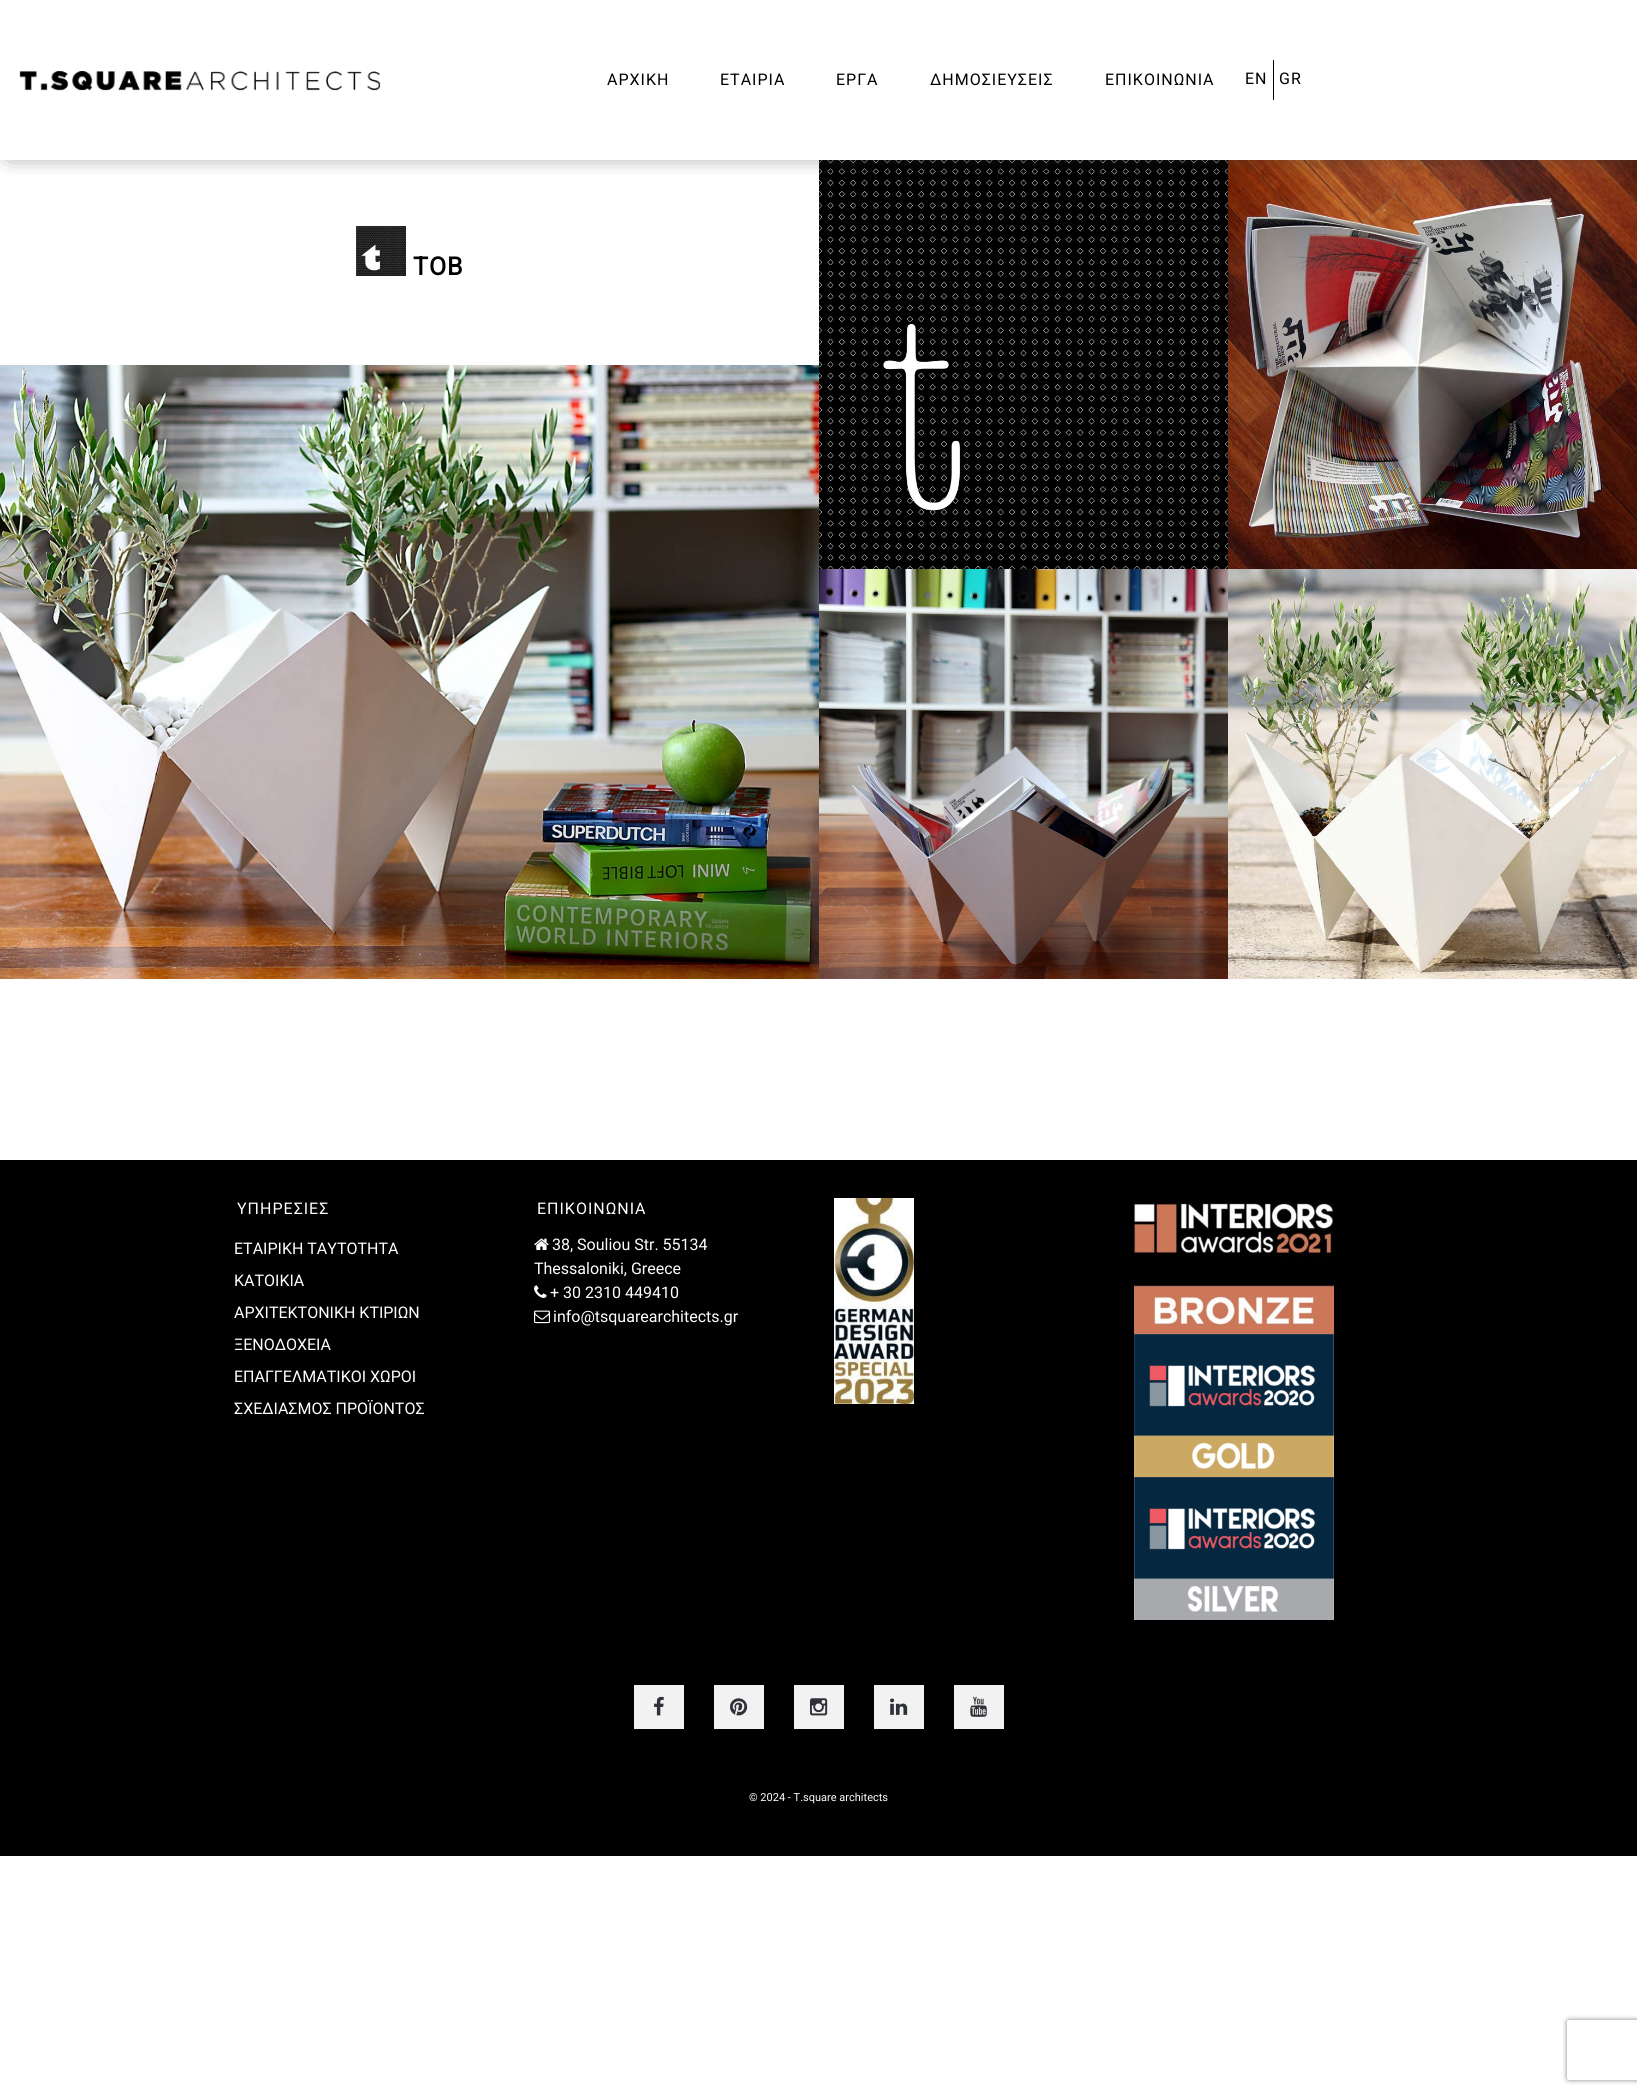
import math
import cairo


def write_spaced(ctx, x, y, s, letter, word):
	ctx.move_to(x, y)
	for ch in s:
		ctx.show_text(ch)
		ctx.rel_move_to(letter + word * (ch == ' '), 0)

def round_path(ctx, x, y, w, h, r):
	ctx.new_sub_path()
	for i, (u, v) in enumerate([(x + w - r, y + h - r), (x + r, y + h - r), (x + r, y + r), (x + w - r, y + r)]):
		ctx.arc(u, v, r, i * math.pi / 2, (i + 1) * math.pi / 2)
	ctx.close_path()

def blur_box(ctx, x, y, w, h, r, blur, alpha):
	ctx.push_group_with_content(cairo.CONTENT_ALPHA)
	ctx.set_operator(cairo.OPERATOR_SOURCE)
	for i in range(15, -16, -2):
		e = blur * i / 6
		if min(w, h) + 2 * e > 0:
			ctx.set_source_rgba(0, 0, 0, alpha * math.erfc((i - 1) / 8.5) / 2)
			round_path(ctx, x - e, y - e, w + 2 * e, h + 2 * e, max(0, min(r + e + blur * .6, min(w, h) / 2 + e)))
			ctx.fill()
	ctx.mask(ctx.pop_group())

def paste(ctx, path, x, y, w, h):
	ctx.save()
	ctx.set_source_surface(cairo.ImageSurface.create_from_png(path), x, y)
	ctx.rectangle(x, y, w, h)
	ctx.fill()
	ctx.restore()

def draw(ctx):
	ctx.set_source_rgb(1, 1, 1)
	ctx.paint()
	paste(ctx, 'media/4.png', 819, 160, 409, 409)
	paste(ctx, 'media/6.png', 1228, 160, 409, 409)
	ctx.save()
	ctx.rectangle(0, 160, 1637, 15)
	ctx.clip()
	ctx.set_source_rgb(0.196, 0.196, 0.196)
	blur_box(ctx, 10, 10, 1617, 140, 0, 12.5, 0.95)
	ctx.restore()
	paste(ctx, 'media/1.png', 19, 71, 362, 20)
	ctx.select_font_face('Roboto')
	ctx.set_font_size(16)
	ctx.set_source_rgb(0, 0, 0)
	for x, y, s in [
		(607, 85, 'ΑΡΧΙΚΗ'),
		(720, 85, 'ΕΤΑΙΡΙΑ'),
		(836, 85, 'ΕΡΓΑ'),
		(930, 85, 'ΔΗΜΟΣΙΕΥΣΕΙΣ'),
		(1105, 85, 'ΕΠΙΚΟΙΝΩΝΙΑ'),
	]:
		write_spaced(ctx, x, y, s, 1, 0)
	ctx.rectangle(1273, 60, 1, 40)
	ctx.fill()
	write_spaced(ctx, 1245, 84, 'EN', 1, 0)
	write_spaced(ctx, 1279, 84, 'GR', 1, 0)
	paste(ctx, 'media/2.png', 356, 226, 50, 50)
	ctx.select_font_face('Roboto', cairo.FONT_SLANT_NORMAL, cairo.FONT_WEIGHT_BOLD)
	ctx.set_font_size(25)
	write_spaced(ctx, 413, 275, 'TOB', 1, 0)
	ctx.set_source_rgb(0.98, 0.98, 0.98)
	ctx.rectangle(818, 363, 1, 1)
	ctx.fill()
	paste(ctx, 'media/3.png', 0, 365, 819, 614)
	paste(ctx, 'media/5.png', 819, 569, 409, 410)
	paste(ctx, 'media/7.png', 1228, 569, 409, 410)
	ctx.set_source_rgb(0, 0, 0)
	ctx.rectangle(0, 1160, 1637, 696)
	ctx.fill()
	ctx.select_font_face('Roboto')
	ctx.set_font_size(16)
	ctx.set_source_rgb(1, 1, 1)
	write_spaced(ctx, 237, 1214, 'ΥΠΗΡΕΣΙΕΣ', 1, 0)
	for x, y, s in [
		(234, 1254, 'ΕΤΑΙΡΙΚΗ ΤΑΥΤΟΤΗΤΑ'),
		(234, 1286, 'ΚΑΤΟΙΚΙΑ'),
		(234, 1318, 'ΑΡΧΙΤΕΚΤΟΝΙΚΗ ΚΤΙΡΙΩΝ'),
		(234, 1350, 'ΞΕΝΟΔΟΧΕΙΑ'),
		(234, 1382, 'ΕΠΑΓΓΕΛΜΑΤΙΚΟΙ ΧΩΡΟΙ'),
		(234, 1414, 'ΣΧΕΔΙΑΣΜΟΣ ΠΡΟΪΟΝΤΟΣ'),
	]:
		ctx.move_to(x, y)
		ctx.show_text(s)
	write_spaced(ctx, 537, 1214, 'ΕΠΙΚΟΙΝΩΝΙΑ', 1, 0)
	paste(ctx, 'media/8.png', 534, 1238, 15, 12)
	ctx.move_to(552, 1250)
	ctx.show_text('38, Souliou Str. 55134')
	ctx.move_to(534, 1274)
	ctx.show_text('Thessaloniki, Greece')
	paste(ctx, 'media/9.png', 534, 1285, 13, 13)
	ctx.move_to(550, 1298)
	ctx.show_text('+ 30 2310 449410')
	paste(ctx, 'media/10.png', 534, 1310, 16, 14)
	ctx.move_to(553, 1322)
	ctx.show_text('info@tsquarearchitects.gr')
	paste(ctx, 'media/11.png', 834, 1198, 80, 206)
	paste(ctx, 'media/12.png', 1134, 1198, 200, 136)
	paste(ctx, 'media/13.png', 1134, 1334, 200, 143)
	paste(ctx, 'media/14.png', 1134, 1477, 200, 143)
	ctx.set_source_rgb(0.949, 0.949, 0.949)
	ctx.rectangle(634, 1685, 50, 44)
	ctx.fill()
	paste(ctx, 'media/15.png', 654, 1696, 10, 20)
	ctx.rectangle(714, 1685, 50, 44)
	ctx.fill()
	paste(ctx, 'media/16.png', 730, 1698, 18, 18)
	ctx.rectangle(794, 1685, 50, 44)
	ctx.fill()
	paste(ctx, 'media/17.png', 810, 1698, 18, 18)
	ctx.rectangle(874, 1685, 50, 44)
	ctx.fill()
	paste(ctx, 'media/18.png', 890, 1698, 18, 17)
	ctx.rectangle(954, 1685, 50, 44)
	ctx.fill()
	paste(ctx, 'media/19.png', 970, 1696, 17, 21)
	ctx.set_font_size(11)
	ctx.set_source_rgb(1, 1, 1)
	ctx.move_to(749, 1801)
	ctx.show_text('© 2024 - T.square architects')
	ctx.save()
	ctx.set_fill_rule(cairo.FILL_RULE_EVEN_ODD)
	ctx.new_path()
	ctx.move_to(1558, 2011)
	ctx.line_to(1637, 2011)
	ctx.line_to(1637, 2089)
	ctx.line_to(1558, 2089)
	ctx.close_path()
	ctx.move_to(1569, 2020)
	ctx.line_to(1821, 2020)
	ctx.curve_to(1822, 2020, 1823, 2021, 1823, 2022)
	ctx.line_to(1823, 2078)
	ctx.curve_to(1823, 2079, 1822, 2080, 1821, 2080)
	ctx.line_to(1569, 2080)
	ctx.curve_to(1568, 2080, 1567, 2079, 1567, 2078)
	ctx.line_to(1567, 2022)
	ctx.curve_to(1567, 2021, 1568, 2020, 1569, 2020)
	ctx.close_path()
	ctx.clip()
	ctx.set_source_rgb(0.502, 0.502, 0.502)
	blur_box(ctx, 1567, 2020, 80, 60, 2, 2.5, 1)
	ctx.restore()


surface = cairo.ImageSurface(cairo.FORMAT_RGB24, 1637, 2094)
ctx = cairo.Context(surface)
options = cairo.FontOptions()
options.set_hint_metrics(cairo.HINT_METRICS_OFF)
options.set_hint_style(cairo.HINT_STYLE_NONE)
ctx.set_font_options(options)
ctx.set_miter_limit(4)
draw(ctx)
surface.write_to_png('image.png')
